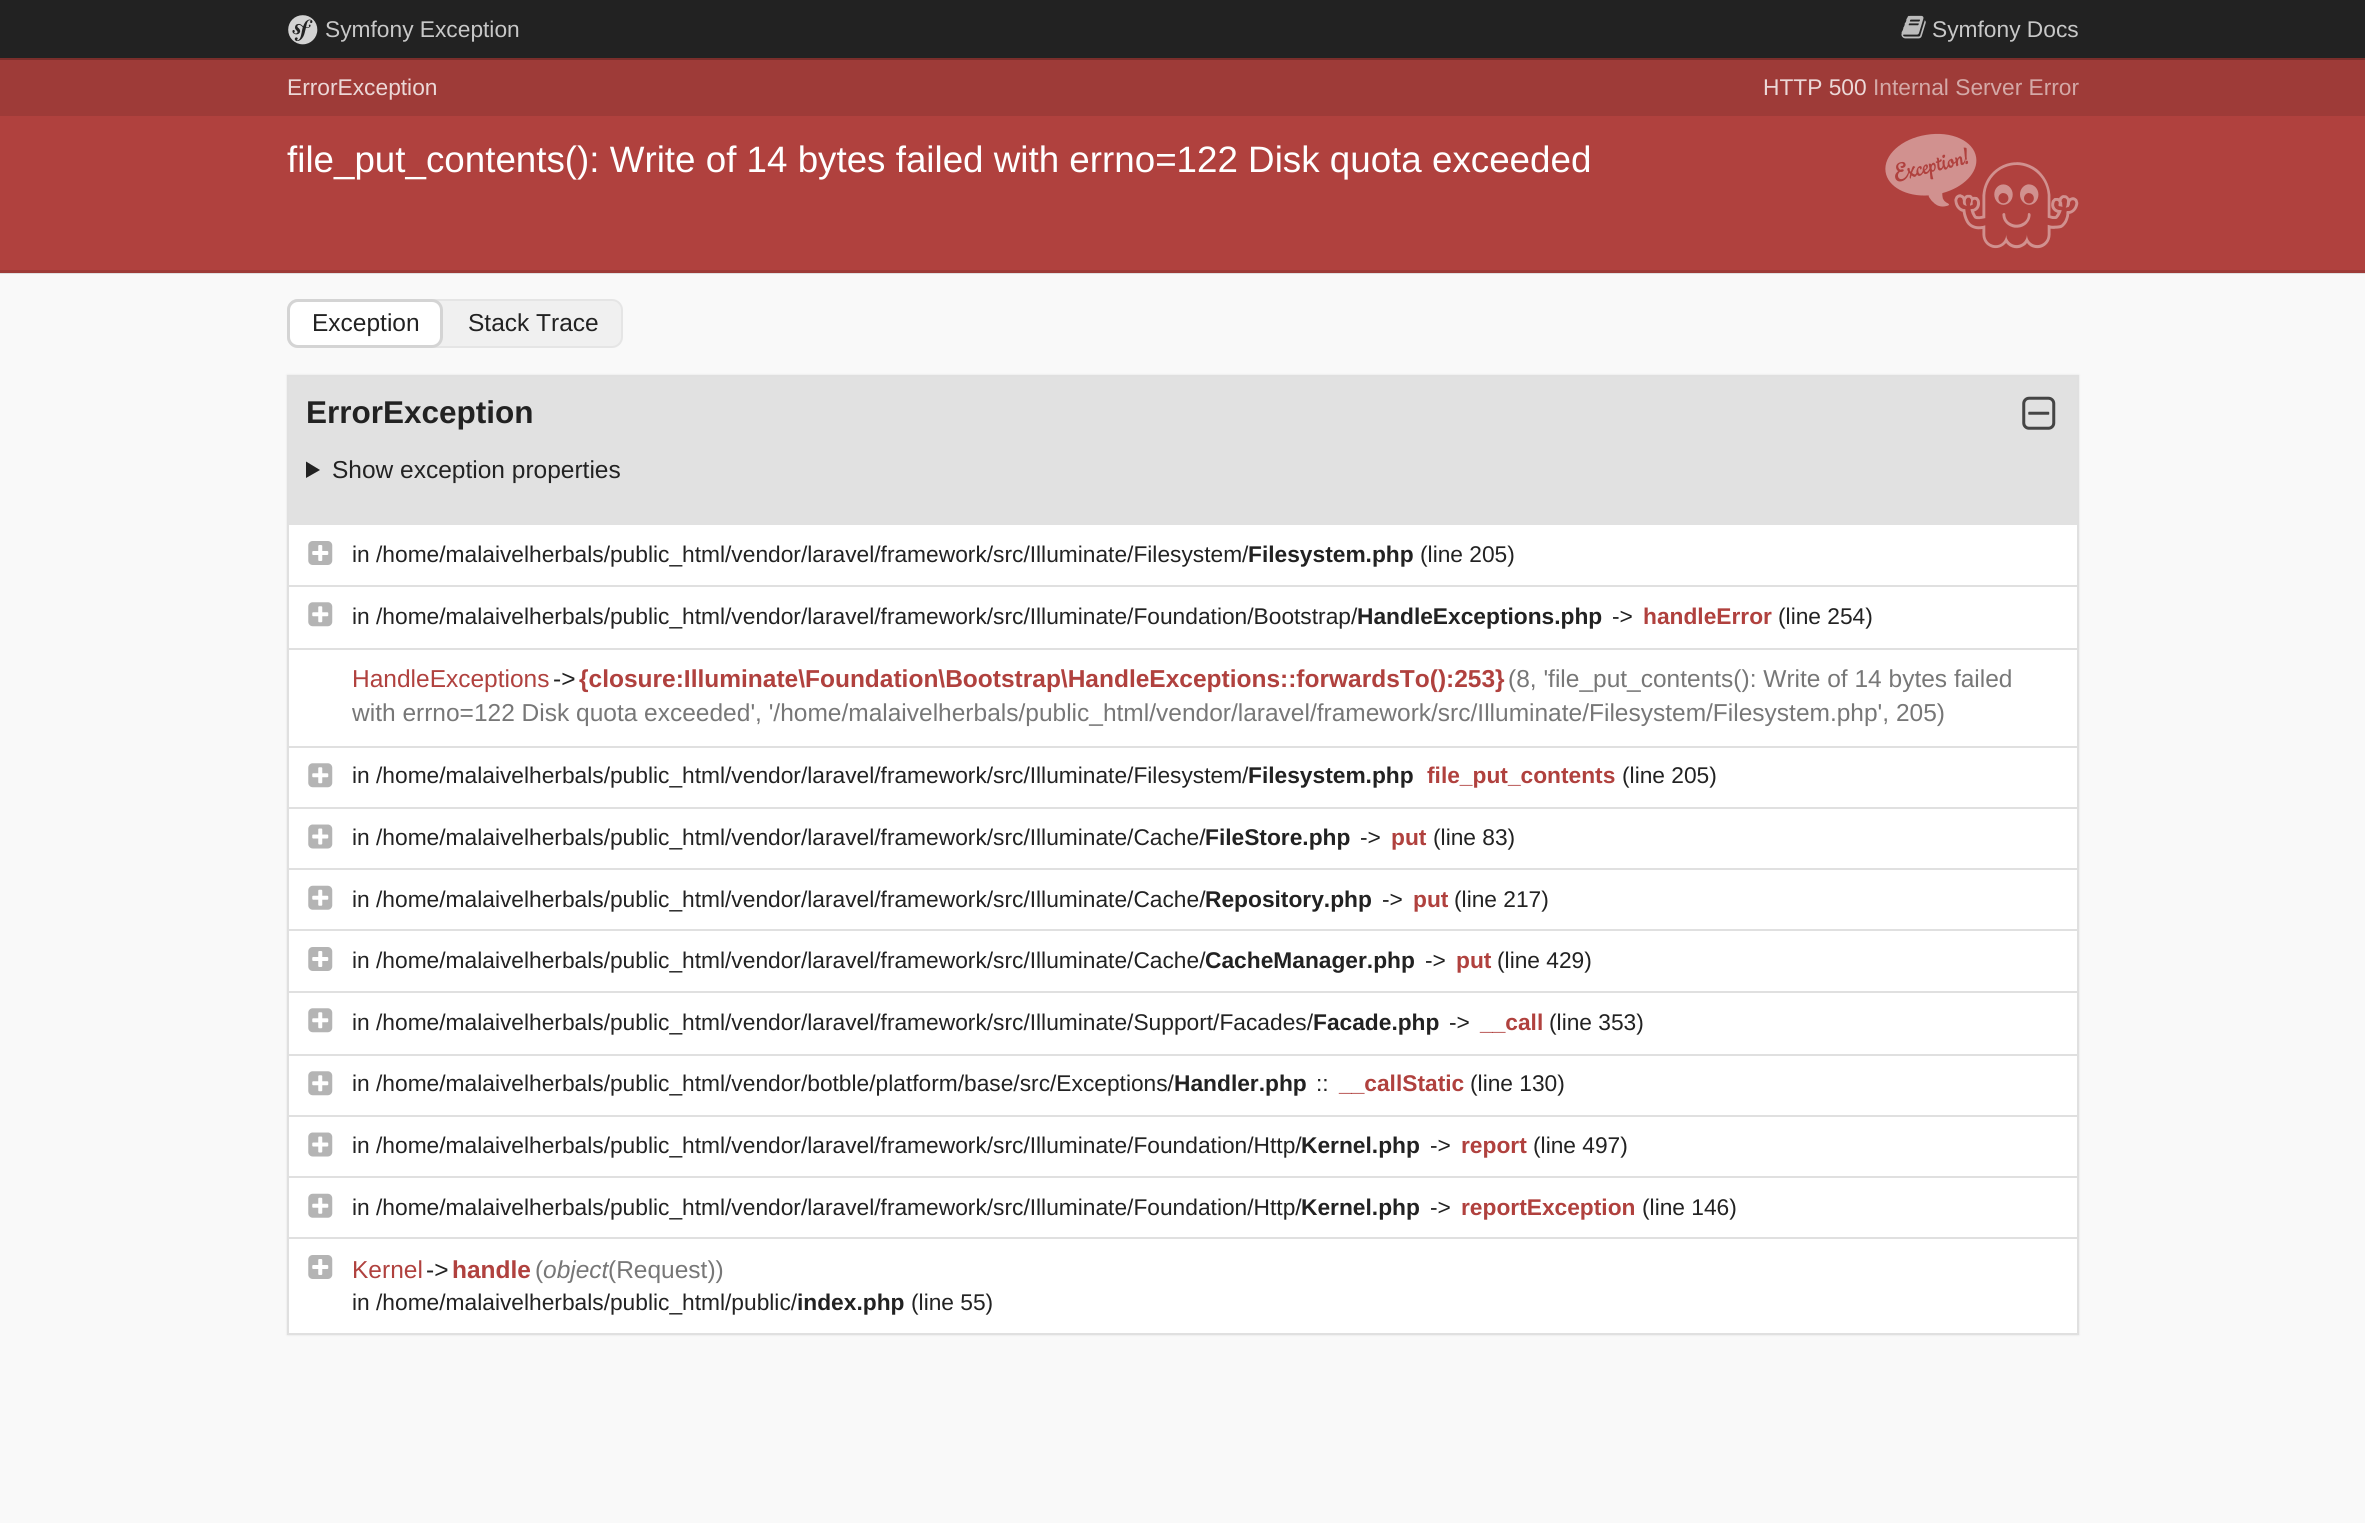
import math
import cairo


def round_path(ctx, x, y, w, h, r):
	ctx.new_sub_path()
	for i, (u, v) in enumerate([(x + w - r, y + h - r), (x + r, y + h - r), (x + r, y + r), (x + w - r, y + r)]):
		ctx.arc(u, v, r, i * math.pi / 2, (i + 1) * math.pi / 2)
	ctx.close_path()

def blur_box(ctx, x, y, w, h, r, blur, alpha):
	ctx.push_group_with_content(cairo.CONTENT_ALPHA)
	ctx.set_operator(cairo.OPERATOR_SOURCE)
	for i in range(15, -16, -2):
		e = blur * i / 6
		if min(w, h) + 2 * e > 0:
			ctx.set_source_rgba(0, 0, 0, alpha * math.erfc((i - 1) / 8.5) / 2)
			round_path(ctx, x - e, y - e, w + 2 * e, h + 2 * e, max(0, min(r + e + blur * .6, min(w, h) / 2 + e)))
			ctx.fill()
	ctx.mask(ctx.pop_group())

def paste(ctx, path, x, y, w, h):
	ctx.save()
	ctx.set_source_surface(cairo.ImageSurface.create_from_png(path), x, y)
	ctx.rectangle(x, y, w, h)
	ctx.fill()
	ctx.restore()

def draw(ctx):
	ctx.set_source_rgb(0.976, 0.976, 0.976)
	ctx.paint()
	ctx.set_source_rgb(0.878, 0.878, 0.878)
	ctx.rectangle(0, 273, 2365, 1)
	ctx.fill()
	ctx.set_source_rgb(0.133, 0.133, 0.133)
	ctx.rectangle(0, 0, 2365, 58)
	ctx.fill()
	paste(ctx, 'media/1.png', 288, 15, 30, 30)
	ctx.select_font_face('Liberation Sans')
	ctx.set_font_size(22.75)
	ctx.set_source_rgb(0.784, 0.784, 0.784)
	ctx.move_to(325, 37)
	ctx.show_text('Symfony Exception')
	paste(ctx, 'media/2.png', 1901, 15, 25, 24)
	ctx.move_to(1932, 37)
	ctx.show_text('Symfony Docs')
	ctx.set_source_rgb(0.69, 0.255, 0.243)
	ctx.rectangle(0, 116, 2365, 154)
	ctx.fill()
	ctx.set_source_rgb(0.62, 0.231, 0.22)
	ctx.rectangle(0, 270, 2365, 3)
	ctx.fill()
	ctx.set_source_rgb(0.482, 0.18, 0.169)
	ctx.rectangle(0, 58, 2365, 2)
	ctx.fill()
	ctx.set_source_rgb(0.62, 0.231, 0.22)
	ctx.rectangle(0, 60, 2365, 56)
	ctx.fill()
	ctx.set_source_rgb(0.925, 0.847, 0.843)
	ctx.move_to(287, 95)
	ctx.show_text('ErrorException')
	ctx.move_to(1763, 95)
	ctx.show_text('HTTP 500')
	ctx.set_source_rgb(0.831, 0.663, 0.655)
	ctx.move_to(1873, 95)
	ctx.show_text('Internal Server Error')
	ctx.set_font_size(36.75)
	ctx.set_source_rgb(1, 1, 1)
	ctx.move_to(287, 172)
	ctx.show_text('file_put_contents(): Write of 14 bytes failed with errno=122 Disk quota exceeded')
	paste(ctx, 'media/3.png', 1885, 133, 194, 116)
	ctx.set_source_rgb(0.941, 0.941, 0.941)
	round_path(ctx, 288, 300, 334, 47, 10)
	ctx.fill_preserve()
	ctx.set_source_rgb(0.898, 0.898, 0.898)
	ctx.stroke()
	ctx.set_source_rgb(1, 1, 1)
	round_path(ctx, 288.5, 300.5, 153, 46, 9.5)
	ctx.fill_preserve()
	ctx.set_source_rgb(0.831, 0.831, 0.831)
	ctx.set_line_width(3)
	ctx.stroke()
	ctx.set_font_size(24.5)
	ctx.set_source_rgb(0.133, 0.133, 0.133)
	ctx.move_to(312, 331)
	ctx.show_text('Exception')
	ctx.move_to(468, 331)
	ctx.show_text('Stack Trace')
	ctx.set_source_rgb(0.502, 0.502, 0.502)
	blur_box(ctx, 287, 375, 1792, 960, 0, 1, 0.2)
	ctx.set_source_rgb(1, 1, 1)
	ctx.rectangle(289, 525, 1788, 808)
	ctx.fill()
	ctx.rectangle(288, 376, 1790, 958)
	ctx.set_source_rgb(0.878, 0.878, 0.878)
	ctx.set_line_width(2)
	ctx.stroke()
	ctx.select_font_face('Liberation Sans', cairo.FONT_SLANT_NORMAL, cairo.FONT_WEIGHT_BOLD)
	ctx.set_font_size(31.5)
	ctx.set_source_rgb(0.133, 0.133, 0.133)
	ctx.move_to(306, 423)
	ctx.show_text('ErrorException')
	paste(ctx, 'media/4.png', 2022, 396, 34, 34)
	ctx.new_path()
	ctx.move_to(306, 461.5)
	ctx.line_to(320, 470)
	ctx.line_to(306, 478)
	ctx.close_path()
	ctx.fill()
	ctx.select_font_face('Liberation Sans')
	ctx.set_font_size(24.5)
	ctx.move_to(332, 478)
	ctx.show_text('Show exception properties')
	paste(ctx, 'media/5.png', 308, 541, 25, 24)
	ctx.set_font_size(22.75)
	ctx.move_to(352, 562)
	ctx.show_text('in /home/malaivelherbals/public_html/vendor/laravel/framework/src/Illuminate/Filesystem/')
	ctx.select_font_face('Liberation Sans', cairo.FONT_SLANT_NORMAL, cairo.FONT_WEIGHT_BOLD)
	ctx.move_to(1248, 562)
	ctx.show_text('Filesystem.php')
	ctx.select_font_face('Liberation Sans')
	ctx.move_to(1420, 562)
	ctx.show_text('(line 205)')
	ctx.set_source_rgb(0.878, 0.878, 0.878)
	ctx.rectangle(289, 585, 1788, 2)
	ctx.fill()
	paste(ctx, 'media/6.png', 308, 602, 25, 25)
	ctx.set_source_rgb(0.133, 0.133, 0.133)
	ctx.move_to(352, 624)
	ctx.show_text('in /home/malaivelherbals/public_html/vendor/laravel/framework/src/Illuminate/Foundation/Bootstrap/')
	ctx.select_font_face('Liberation Sans', cairo.FONT_SLANT_NORMAL, cairo.FONT_WEIGHT_BOLD)
	ctx.move_to(1357, 624)
	ctx.show_text('HandleExceptions.php')
	ctx.select_font_face('Liberation Sans')
	ctx.move_to(1612, 624)
	ctx.show_text('->')
	ctx.select_font_face('Liberation Sans', cairo.FONT_SLANT_NORMAL, cairo.FONT_WEIGHT_BOLD)
	ctx.set_source_rgb(0.69, 0.255, 0.243)
	ctx.move_to(1643, 624)
	ctx.show_text('handleError')
	ctx.select_font_face('Liberation Sans')
	ctx.set_source_rgb(0.133, 0.133, 0.133)
	ctx.move_to(1778, 624)
	ctx.show_text('(line 254)')
	ctx.set_source_rgb(0.878, 0.878, 0.878)
	ctx.rectangle(289, 648, 1788, 2)
	ctx.fill()
	ctx.set_font_size(24.5)
	ctx.set_source_rgb(0.69, 0.255, 0.243)
	ctx.move_to(352, 687)
	ctx.show_text('HandleExceptions')
	ctx.set_source_rgb(0.133, 0.133, 0.133)
	ctx.move_to(553, 687)
	ctx.show_text('->')
	ctx.select_font_face('Liberation Sans', cairo.FONT_SLANT_NORMAL, cairo.FONT_WEIGHT_BOLD)
	ctx.set_source_rgb(0.69, 0.255, 0.243)
	ctx.move_to(579, 687)
	ctx.show_text('{closure:Illuminate\\Foundation\\Bootstrap\\HandleExceptions::forwardsTo():253}')
	ctx.select_font_face('Liberation Sans')
	ctx.set_source_rgb(0.467, 0.467, 0.467)
	ctx.move_to(1508, 687)
	ctx.show_text('(8, \'file_put_contents(): Write of 14 bytes failed')
	ctx.move_to(352, 721)
	ctx.show_text('with errno=122 Disk quota exceeded\', \'/home/malaivelherbals/public_html/vendor/laravel/framework/src/Illuminate/Filesystem/Filesystem.php\', 205)')
	ctx.set_source_rgb(0.878, 0.878, 0.878)
	ctx.rectangle(289, 746, 1788, 2)
	ctx.fill()
	paste(ctx, 'media/6.png', 308, 763, 25, 25)
	ctx.set_font_size(22.75)
	ctx.set_source_rgb(0.133, 0.133, 0.133)
	ctx.move_to(352, 783)
	ctx.show_text('in /home/malaivelherbals/public_html/vendor/laravel/framework/src/Illuminate/Filesystem/')
	ctx.select_font_face('Liberation Sans', cairo.FONT_SLANT_NORMAL, cairo.FONT_WEIGHT_BOLD)
	ctx.move_to(1248, 783)
	ctx.show_text('Filesystem.php')
	ctx.set_source_rgb(0.69, 0.255, 0.243)
	ctx.move_to(1427, 783)
	ctx.show_text('file_put_contents')
	ctx.select_font_face('Liberation Sans')
	ctx.set_source_rgb(0.133, 0.133, 0.133)
	ctx.move_to(1622, 783)
	ctx.show_text('(line 205)')
	ctx.set_source_rgb(0.878, 0.878, 0.878)
	ctx.rectangle(289, 807, 1788, 2)
	ctx.fill()
	paste(ctx, 'media/7.png', 308, 824, 25, 25)
	ctx.set_source_rgb(0.133, 0.133, 0.133)
	ctx.move_to(352, 845)
	ctx.show_text('in /home/malaivelherbals/public_html/vendor/laravel/framework/src/Illuminate/Cache/')
	ctx.select_font_face('Liberation Sans', cairo.FONT_SLANT_NORMAL, cairo.FONT_WEIGHT_BOLD)
	ctx.move_to(1205, 845)
	ctx.show_text('FileStore.php')
	ctx.select_font_face('Liberation Sans')
	ctx.move_to(1360, 845)
	ctx.show_text('->')
	ctx.select_font_face('Liberation Sans', cairo.FONT_SLANT_NORMAL, cairo.FONT_WEIGHT_BOLD)
	ctx.set_source_rgb(0.69, 0.255, 0.243)
	ctx.move_to(1391, 845)
	ctx.show_text('put')
	ctx.select_font_face('Liberation Sans')
	ctx.set_source_rgb(0.133, 0.133, 0.133)
	ctx.move_to(1433, 845)
	ctx.show_text('(line 83)')
	ctx.set_source_rgb(0.878, 0.878, 0.878)
	ctx.rectangle(289, 868, 1788, 2)
	ctx.fill()
	paste(ctx, 'media/8.png', 308, 885, 25, 25)
	ctx.set_source_rgb(0.133, 0.133, 0.133)
	ctx.move_to(352, 907)
	ctx.show_text('in /home/malaivelherbals/public_html/vendor/laravel/framework/src/Illuminate/Cache/')
	ctx.select_font_face('Liberation Sans', cairo.FONT_SLANT_NORMAL, cairo.FONT_WEIGHT_BOLD)
	ctx.move_to(1205, 907)
	ctx.show_text('Repository.php')
	ctx.select_font_face('Liberation Sans')
	ctx.move_to(1382, 907)
	ctx.show_text('->')
	ctx.select_font_face('Liberation Sans', cairo.FONT_SLANT_NORMAL, cairo.FONT_WEIGHT_BOLD)
	ctx.set_source_rgb(0.69, 0.255, 0.243)
	ctx.move_to(1413, 907)
	ctx.show_text('put')
	ctx.select_font_face('Liberation Sans')
	ctx.set_source_rgb(0.133, 0.133, 0.133)
	ctx.move_to(1454, 907)
	ctx.show_text('(line 217)')
	ctx.set_source_rgb(0.878, 0.878, 0.878)
	ctx.rectangle(289, 929, 1788, 2)
	ctx.fill()
	paste(ctx, 'media/5.png', 308, 947, 25, 24)
	ctx.set_source_rgb(0.133, 0.133, 0.133)
	ctx.move_to(352, 968)
	ctx.show_text('in /home/malaivelherbals/public_html/vendor/laravel/framework/src/Illuminate/Cache/')
	ctx.select_font_face('Liberation Sans', cairo.FONT_SLANT_NORMAL, cairo.FONT_WEIGHT_BOLD)
	ctx.move_to(1205, 968)
	ctx.show_text('CacheManager.php')
	ctx.select_font_face('Liberation Sans')
	ctx.move_to(1425, 968)
	ctx.show_text('->')
	ctx.select_font_face('Liberation Sans', cairo.FONT_SLANT_NORMAL, cairo.FONT_WEIGHT_BOLD)
	ctx.set_source_rgb(0.69, 0.255, 0.243)
	ctx.move_to(1456, 968)
	ctx.show_text('put')
	ctx.select_font_face('Liberation Sans')
	ctx.set_source_rgb(0.133, 0.133, 0.133)
	ctx.move_to(1497, 968)
	ctx.show_text('(line 429)')
	ctx.set_source_rgb(0.878, 0.878, 0.878)
	ctx.rectangle(289, 991, 1788, 2)
	ctx.fill()
	paste(ctx, 'media/6.png', 308, 1008, 25, 25)
	ctx.set_source_rgb(0.133, 0.133, 0.133)
	ctx.move_to(352, 1030)
	ctx.show_text('in /home/malaivelherbals/public_html/vendor/laravel/framework/src/Illuminate/Support/Facades/')
	ctx.select_font_face('Liberation Sans', cairo.FONT_SLANT_NORMAL, cairo.FONT_WEIGHT_BOLD)
	ctx.move_to(1313, 1030)
	ctx.show_text('Facade.php')
	ctx.select_font_face('Liberation Sans')
	ctx.move_to(1449, 1030)
	ctx.show_text('->')
	ctx.select_font_face('Liberation Sans', cairo.FONT_SLANT_NORMAL, cairo.FONT_WEIGHT_BOLD)
	ctx.set_source_rgb(0.69, 0.255, 0.243)
	ctx.move_to(1480, 1030)
	ctx.show_text('__call')
	ctx.select_font_face('Liberation Sans')
	ctx.set_source_rgb(0.133, 0.133, 0.133)
	ctx.move_to(1549, 1030)
	ctx.show_text('(line 353)')
	ctx.set_source_rgb(0.878, 0.878, 0.878)
	ctx.rectangle(289, 1054, 1788, 2)
	ctx.fill()
	paste(ctx, 'media/6.png', 308, 1071, 25, 25)
	ctx.set_source_rgb(0.133, 0.133, 0.133)
	ctx.move_to(352, 1091)
	ctx.show_text('in /home/malaivelherbals/public_html/vendor/botble/platform/base/src/Exceptions/')
	ctx.select_font_face('Liberation Sans', cairo.FONT_SLANT_NORMAL, cairo.FONT_WEIGHT_BOLD)
	ctx.move_to(1174, 1091)
	ctx.show_text('Handler.php')
	ctx.select_font_face('Liberation Sans')
	ctx.move_to(1316, 1091)
	ctx.show_text('::')
	ctx.select_font_face('Liberation Sans', cairo.FONT_SLANT_NORMAL, cairo.FONT_WEIGHT_BOLD)
	ctx.set_source_rgb(0.69, 0.255, 0.243)
	ctx.move_to(1339, 1091)
	ctx.show_text('__callStatic')
	ctx.select_font_face('Liberation Sans')
	ctx.set_source_rgb(0.133, 0.133, 0.133)
	ctx.move_to(1470, 1091)
	ctx.show_text('(line 130)')
	ctx.set_source_rgb(0.878, 0.878, 0.878)
	ctx.rectangle(289, 1115, 1788, 2)
	ctx.fill()
	paste(ctx, 'media/7.png', 308, 1132, 25, 25)
	ctx.set_source_rgb(0.133, 0.133, 0.133)
	ctx.move_to(352, 1153)
	ctx.show_text('in /home/malaivelherbals/public_html/vendor/laravel/framework/src/Illuminate/Foundation/Http/')
	ctx.select_font_face('Liberation Sans', cairo.FONT_SLANT_NORMAL, cairo.FONT_WEIGHT_BOLD)
	ctx.move_to(1301, 1153)
	ctx.show_text('Kernel.php')
	ctx.select_font_face('Liberation Sans')
	ctx.move_to(1430, 1153)
	ctx.show_text('->')
	ctx.select_font_face('Liberation Sans', cairo.FONT_SLANT_NORMAL, cairo.FONT_WEIGHT_BOLD)
	ctx.set_source_rgb(0.69, 0.255, 0.243)
	ctx.move_to(1461, 1153)
	ctx.show_text('report')
	ctx.select_font_face('Liberation Sans')
	ctx.set_source_rgb(0.133, 0.133, 0.133)
	ctx.move_to(1533, 1153)
	ctx.show_text('(line 497)')
	ctx.set_source_rgb(0.878, 0.878, 0.878)
	ctx.rectangle(289, 1176, 1788, 2)
	ctx.fill()
	paste(ctx, 'media/8.png', 308, 1193, 25, 25)
	ctx.set_source_rgb(0.133, 0.133, 0.133)
	ctx.move_to(352, 1215)
	ctx.show_text('in /home/malaivelherbals/public_html/vendor/laravel/framework/src/Illuminate/Foundation/Http/')
	ctx.select_font_face('Liberation Sans', cairo.FONT_SLANT_NORMAL, cairo.FONT_WEIGHT_BOLD)
	ctx.move_to(1301, 1215)
	ctx.show_text('Kernel.php')
	ctx.select_font_face('Liberation Sans')
	ctx.move_to(1430, 1215)
	ctx.show_text('->')
	ctx.select_font_face('Liberation Sans', cairo.FONT_SLANT_NORMAL, cairo.FONT_WEIGHT_BOLD)
	ctx.set_source_rgb(0.69, 0.255, 0.243)
	ctx.move_to(1461, 1215)
	ctx.show_text('reportException')
	ctx.select_font_face('Liberation Sans')
	ctx.set_source_rgb(0.133, 0.133, 0.133)
	ctx.move_to(1642, 1215)
	ctx.show_text('(line 146)')
	ctx.set_source_rgb(0.878, 0.878, 0.878)
	ctx.rectangle(289, 1237, 1788, 2)
	ctx.fill()
	paste(ctx, 'media/5.png', 308, 1255, 25, 24)
	ctx.set_font_size(24.5)
	ctx.set_source_rgb(0.69, 0.255, 0.243)
	ctx.move_to(352, 1278)
	ctx.show_text('Kernel')
	ctx.set_source_rgb(0.133, 0.133, 0.133)
	ctx.move_to(426, 1278)
	ctx.show_text('->')
	ctx.select_font_face('Liberation Sans', cairo.FONT_SLANT_NORMAL, cairo.FONT_WEIGHT_BOLD)
	ctx.set_source_rgb(0.69, 0.255, 0.243)
	ctx.move_to(452, 1278)
	ctx.show_text('handle')
	ctx.select_font_face('Liberation Sans')
	ctx.set_source_rgb(0.467, 0.467, 0.467)
	ctx.move_to(535, 1278)
	ctx.show_text('(')
	ctx.select_font_face('Liberation Sans', cairo.FONT_SLANT_ITALIC)
	ctx.move_to(543, 1278)
	ctx.show_text('object')
	ctx.select_font_face('Liberation Sans')
	ctx.move_to(608, 1278)
	ctx.show_text('(Request))')
	ctx.set_font_size(22.75)
	ctx.set_source_rgb(0.133, 0.133, 0.133)
	ctx.move_to(352, 1310)
	ctx.show_text('in /home/malaivelherbals/public_html/public/')
	ctx.select_font_face('Liberation Sans', cairo.FONT_SLANT_NORMAL, cairo.FONT_WEIGHT_BOLD)
	ctx.move_to(797, 1310)
	ctx.show_text('index.php')
	ctx.select_font_face('Liberation Sans')
	ctx.move_to(911, 1310)
	ctx.show_text('(line 55)')


surface = cairo.ImageSurface(cairo.FORMAT_RGB24, 2365, 1523)
ctx = cairo.Context(surface)
options = cairo.FontOptions()
options.set_hint_metrics(cairo.HINT_METRICS_OFF)
options.set_hint_style(cairo.HINT_STYLE_NONE)
ctx.set_font_options(options)
ctx.set_miter_limit(4)
draw(ctx)
surface.write_to_png('image.png')
